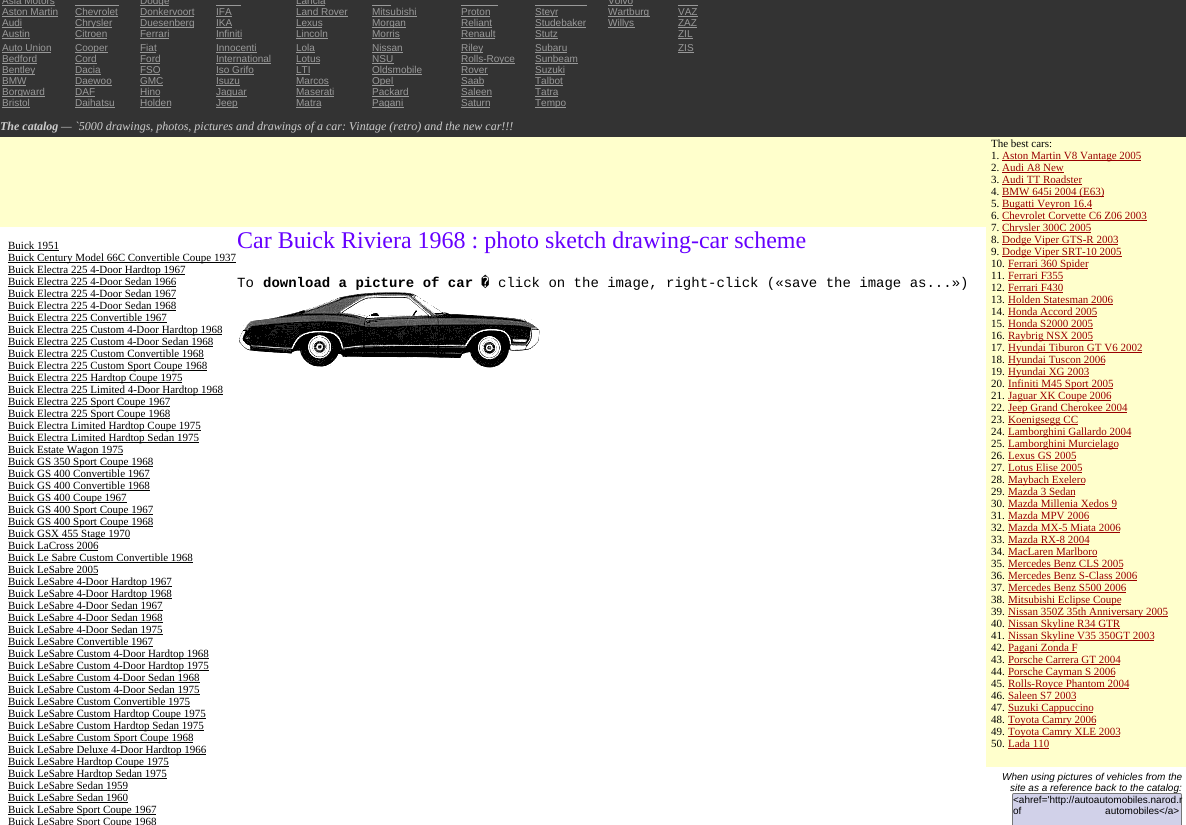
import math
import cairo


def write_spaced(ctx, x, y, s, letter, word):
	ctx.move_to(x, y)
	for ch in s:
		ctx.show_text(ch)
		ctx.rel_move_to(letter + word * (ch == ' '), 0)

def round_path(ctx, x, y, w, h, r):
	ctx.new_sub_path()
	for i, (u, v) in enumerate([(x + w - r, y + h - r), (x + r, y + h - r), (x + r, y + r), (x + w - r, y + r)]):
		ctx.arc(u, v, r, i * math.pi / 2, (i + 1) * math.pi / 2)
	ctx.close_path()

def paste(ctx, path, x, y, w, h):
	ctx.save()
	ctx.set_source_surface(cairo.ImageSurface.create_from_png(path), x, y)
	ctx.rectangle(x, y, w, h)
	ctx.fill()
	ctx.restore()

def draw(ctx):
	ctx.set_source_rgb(1, 1, 1)
	ctx.paint()
	ctx.set_source_rgb(0.2, 0.2, 0.2)
	ctx.rectangle(0, 0, 1186, 137)
	ctx.fill()
	ctx.select_font_face('Liberation Sans')
	ctx.set_font_size(10)
	ctx.set_source_rgb(0.6, 0.6, 0.6)
	ctx.move_to(2, 4)
	ctx.show_text('Asia Motors')
	ctx.rectangle(2, 5, 53, 1)
	ctx.fill()
	ctx.rectangle(140, 5, 29, 1)
	ctx.fill()
	ctx.move_to(140, 4)
	ctx.show_text('Dodge')
	ctx.move_to(296, 4)
	ctx.show_text('Lancia')
	ctx.rectangle(296, 5, 29, 1)
	ctx.fill()
	ctx.move_to(608, 4)
	ctx.show_text('Volvo')
	ctx.rectangle(608, 5, 25, 1)
	ctx.rectangle(75, 5, 44, 1)
	ctx.rectangle(216, 5, 25, 1)
	ctx.rectangle(372, 5, 19, 1)
	ctx.rectangle(461, 5, 37, 1)
	ctx.rectangle(535, 5, 52, 1)
	ctx.rectangle(678, 5, 20, 1)
	ctx.fill()
	ctx.move_to(2, 15)
	ctx.show_text('Aston Martin')
	ctx.rectangle(2, 16, 56, 1)
	ctx.fill()
	ctx.move_to(75, 15)
	ctx.show_text('Chevrolet')
	ctx.rectangle(75, 16, 43, 1)
	ctx.fill()
	ctx.move_to(140, 15)
	ctx.show_text('Donkervoort')
	ctx.rectangle(140, 16, 54, 1)
	ctx.fill()
	ctx.move_to(216, 15)
	ctx.show_text('IFA')
	ctx.rectangle(216, 16, 16, 1)
	ctx.fill()
	ctx.move_to(296, 15)
	ctx.show_text('Land Rover')
	ctx.rectangle(296, 16, 52, 1)
	ctx.fill()
	ctx.move_to(372, 15)
	ctx.show_text('Mitsubishi')
	ctx.rectangle(372, 16, 45, 1)
	ctx.fill()
	ctx.move_to(461, 15)
	ctx.show_text('Proton')
	ctx.rectangle(461, 16, 29, 1)
	ctx.fill()
	ctx.rectangle(535, 16, 23, 1)
	ctx.fill()
	ctx.move_to(535, 15)
	ctx.show_text('Steyr')
	ctx.rectangle(608, 16, 42, 1)
	ctx.fill()
	ctx.move_to(608, 15)
	ctx.show_text('Wartburg')
	ctx.move_to(678, 15)
	ctx.show_text('VAZ')
	ctx.rectangle(678, 16, 20, 1)
	ctx.fill()
	ctx.move_to(2, 26)
	ctx.show_text('Audi')
	ctx.rectangle(2, 27, 20, 1)
	ctx.fill()
	ctx.rectangle(75, 27, 37, 1)
	ctx.fill()
	ctx.move_to(75, 26)
	ctx.show_text('Chrysler')
	ctx.rectangle(140, 27, 54, 1)
	ctx.fill()
	ctx.move_to(140, 26)
	ctx.show_text('Duesenberg')
	ctx.move_to(216, 26)
	ctx.show_text('IKA')
	ctx.rectangle(216, 27, 16, 1)
	ctx.fill()
	ctx.move_to(296, 26)
	ctx.show_text('Lexus')
	ctx.rectangle(296, 27, 26, 1)
	ctx.fill()
	ctx.rectangle(372, 27, 34, 1)
	ctx.fill()
	ctx.move_to(372, 26)
	ctx.show_text('Morgan')
	ctx.move_to(461, 26)
	ctx.show_text('Reliant')
	ctx.rectangle(461, 27, 31, 1)
	ctx.fill()
	ctx.move_to(535, 26)
	ctx.show_text('Studebaker')
	ctx.rectangle(535, 27, 51, 1)
	ctx.fill()
	ctx.rectangle(608, 27, 27, 1)
	ctx.fill()
	ctx.move_to(608, 26)
	ctx.show_text('Willys')
	ctx.move_to(678, 26)
	ctx.show_text('ZAZ')
	ctx.rectangle(678, 27, 19, 1)
	ctx.fill()
	ctx.move_to(2, 37)
	ctx.show_text('Austin')
	ctx.rectangle(2, 38, 28, 1)
	ctx.fill()
	ctx.move_to(75, 37)
	ctx.show_text('Citroen')
	ctx.rectangle(75, 38, 32, 1)
	ctx.fill()
	ctx.move_to(140, 37)
	ctx.show_text('Ferrari')
	ctx.rectangle(140, 38, 29, 1)
	ctx.fill()
	ctx.move_to(216, 37)
	ctx.show_text('Infiniti')
	ctx.rectangle(216, 38, 26, 1)
	ctx.fill()
	ctx.move_to(296, 37)
	ctx.show_text('Lincoln')
	ctx.rectangle(296, 38, 32, 1)
	ctx.fill()
	ctx.move_to(372, 37)
	ctx.show_text('Morris')
	ctx.rectangle(372, 38, 28, 1)
	ctx.fill()
	ctx.move_to(461, 37)
	ctx.show_text('Renault')
	ctx.rectangle(461, 38, 34, 1)
	ctx.fill()
	ctx.move_to(535, 37)
	ctx.show_text('Stutz')
	ctx.rectangle(535, 38, 23, 1)
	ctx.fill()
	ctx.move_to(678, 37)
	ctx.show_text('ZIL')
	ctx.rectangle(678, 38, 15, 1)
	ctx.fill()
	ctx.move_to(2, 51)
	ctx.show_text('Auto Union')
	ctx.rectangle(2, 52, 49, 1)
	ctx.fill()
	ctx.rectangle(75, 52, 33, 1)
	ctx.fill()
	ctx.move_to(75, 51)
	ctx.show_text('Cooper')
	ctx.move_to(140, 51)
	ctx.show_text('Fiat')
	ctx.rectangle(140, 52, 16, 1)
	ctx.fill()
	ctx.move_to(216, 51)
	ctx.show_text('Innocenti')
	ctx.rectangle(216, 52, 41, 1)
	ctx.fill()
	ctx.move_to(296, 51)
	ctx.show_text('Lola')
	ctx.rectangle(296, 52, 19, 1)
	ctx.fill()
	ctx.move_to(372, 51)
	ctx.show_text('Nissan')
	ctx.rectangle(372, 52, 31, 1)
	ctx.fill()
	ctx.rectangle(461, 52, 22, 1)
	ctx.fill()
	ctx.move_to(461, 51)
	ctx.show_text('Riley')
	ctx.move_to(535, 51)
	ctx.show_text('Subaru')
	ctx.rectangle(535, 52, 32, 1)
	ctx.fill()
	ctx.move_to(678, 51)
	ctx.show_text('ZIS')
	ctx.rectangle(678, 52, 16, 1)
	ctx.fill()
	ctx.move_to(2, 62)
	ctx.show_text('Bedford')
	ctx.rectangle(2, 63, 35, 1)
	ctx.fill()
	ctx.move_to(75, 62)
	ctx.show_text('Cord')
	ctx.rectangle(75, 63, 22, 1)
	ctx.fill()
	ctx.move_to(140, 62)
	ctx.show_text('Ford')
	ctx.rectangle(140, 63, 20, 1)
	ctx.fill()
	ctx.move_to(216, 62)
	ctx.show_text('International')
	ctx.rectangle(216, 63, 55, 1)
	ctx.fill()
	ctx.move_to(296, 62)
	ctx.show_text('Lotus')
	ctx.rectangle(296, 63, 24, 1)
	ctx.fill()
	ctx.move_to(372, 62)
	ctx.show_text('NSU')
	ctx.rectangle(372, 63, 22, 1)
	ctx.fill()
	ctx.rectangle(461, 63, 54, 1)
	ctx.fill()
	ctx.move_to(461, 62)
	ctx.show_text('Rolls-Royce')
	ctx.move_to(535, 62)
	ctx.show_text('Sunbeam')
	ctx.rectangle(535, 63, 43, 1)
	ctx.fill()
	ctx.rectangle(2, 74, 33, 1)
	ctx.fill()
	ctx.move_to(2, 73)
	ctx.show_text('Bentley')
	ctx.move_to(75, 73)
	ctx.show_text('Dacia')
	ctx.rectangle(75, 74, 26, 1)
	ctx.fill()
	ctx.move_to(140, 73)
	ctx.show_text('FSO')
	ctx.rectangle(140, 74, 20, 1)
	ctx.fill()
	ctx.move_to(216, 73)
	ctx.show_text('Iso Grifo')
	ctx.rectangle(216, 74, 38, 1)
	ctx.fill()
	ctx.move_to(296, 73)
	ctx.show_text('LTI')
	ctx.rectangle(296, 74, 14, 1)
	ctx.fill()
	ctx.move_to(372, 73)
	ctx.show_text('Oldsmobile')
	ctx.rectangle(372, 74, 50, 1)
	ctx.fill()
	ctx.move_to(461, 73)
	ctx.show_text('Rover')
	ctx.rectangle(461, 74, 27, 1)
	ctx.fill()
	ctx.move_to(535, 73)
	ctx.show_text('Suzuki')
	ctx.rectangle(535, 74, 30, 1)
	ctx.fill()
	ctx.move_to(2, 84)
	ctx.show_text('BMW')
	ctx.rectangle(2, 85, 24, 1)
	ctx.fill()
	ctx.move_to(75, 84)
	ctx.show_text('Daewoo')
	ctx.rectangle(75, 85, 37, 1)
	ctx.fill()
	ctx.move_to(140, 84)
	ctx.show_text('GMC')
	ctx.rectangle(140, 85, 23, 1)
	ctx.fill()
	ctx.move_to(216, 84)
	ctx.show_text('Isuzu')
	ctx.rectangle(216, 85, 24, 1)
	ctx.fill()
	ctx.move_to(296, 84)
	ctx.show_text('Marcos')
	ctx.rectangle(296, 85, 33, 1)
	ctx.fill()
	ctx.rectangle(372, 85, 22, 1)
	ctx.fill()
	ctx.move_to(372, 84)
	ctx.show_text('Opel')
	ctx.move_to(461, 84)
	ctx.show_text('Saab')
	ctx.rectangle(461, 85, 23, 1)
	ctx.fill()
	ctx.move_to(535, 84)
	ctx.show_text('Talbot')
	ctx.rectangle(535, 85, 28, 1)
	ctx.fill()
	ctx.rectangle(2, 96, 43, 1)
	ctx.fill()
	ctx.move_to(2, 95)
	ctx.show_text('Borgward')
	ctx.move_to(75, 95)
	ctx.show_text('DAF')
	ctx.rectangle(75, 96, 20, 1)
	ctx.fill()
	ctx.move_to(140, 95)
	ctx.show_text('Hino')
	ctx.rectangle(140, 96, 20, 1)
	ctx.fill()
	ctx.rectangle(216, 96, 31, 1)
	ctx.fill()
	ctx.move_to(216, 95)
	ctx.show_text('Jaguar')
	ctx.move_to(296, 95)
	ctx.show_text('Maserati')
	ctx.rectangle(296, 96, 38, 1)
	ctx.fill()
	ctx.move_to(372, 95)
	ctx.show_text('Packard')
	ctx.rectangle(372, 96, 37, 1)
	ctx.fill()
	ctx.move_to(461, 95)
	ctx.show_text('Saleen')
	ctx.rectangle(461, 96, 31, 1)
	ctx.fill()
	ctx.move_to(535, 95)
	ctx.show_text('Tatra')
	ctx.rectangle(535, 96, 23, 1)
	ctx.fill()
	ctx.move_to(2, 106)
	ctx.show_text('Bristol')
	ctx.rectangle(2, 107, 28, 1)
	ctx.fill()
	ctx.move_to(75, 106)
	ctx.show_text('Daihatsu')
	ctx.rectangle(75, 107, 40, 1)
	ctx.fill()
	ctx.move_to(140, 106)
	ctx.show_text('Holden')
	ctx.rectangle(140, 107, 31, 1)
	ctx.fill()
	ctx.rectangle(216, 107, 22, 1)
	ctx.fill()
	ctx.move_to(216, 106)
	ctx.show_text('Jeep')
	ctx.move_to(296, 106)
	ctx.show_text('Matra')
	ctx.rectangle(296, 107, 25, 1)
	ctx.fill()
	ctx.rectangle(372, 107, 32, 1)
	ctx.fill()
	ctx.move_to(372, 106)
	ctx.show_text('Pagani')
	ctx.move_to(461, 106)
	ctx.show_text('Saturn')
	ctx.rectangle(461, 107, 29, 1)
	ctx.fill()
	ctx.rectangle(535, 107, 31, 1)
	ctx.fill()
	ctx.move_to(535, 106)
	ctx.show_text('Tempo')
	ctx.select_font_face('Liberation Serif', cairo.FONT_SLANT_ITALIC, cairo.FONT_WEIGHT_BOLD)
	ctx.set_font_size(12)
	ctx.set_source_rgb(0.8, 0.8, 0.8)
	ctx.move_to(0, 130)
	ctx.show_text('The catalog')
	ctx.select_font_face('Liberation Serif', cairo.FONT_SLANT_ITALIC)
	ctx.move_to(61, 130)
	ctx.show_text('— `5000 drawings, photos, pictures and drawings of a car: Vintage (retro) and the new car!!!')
	ctx.select_font_face('Liberation Serif')
	ctx.set_font_size(11)
	ctx.set_source_rgb(0, 0, 0)
	ctx.move_to(8, 249)
	ctx.show_text('Buick 1951')
	ctx.rectangle(8, 250, 51, 1)
	ctx.fill()
	ctx.rectangle(8, 262, 228, 1)
	ctx.fill()
	ctx.move_to(8, 261)
	ctx.show_text('Buick Century Model 66C Convertible Coupe 1937')
	ctx.rectangle(8, 274, 177, 1)
	ctx.fill()
	ctx.move_to(8, 273)
	ctx.show_text('Buick Electra 225 4-Door Hardtop 1967')
	ctx.move_to(8, 285)
	ctx.show_text('Buick Electra 225 4-Door Sedan 1966')
	ctx.rectangle(8, 286, 168, 1)
	ctx.fill()
	ctx.move_to(8, 297)
	ctx.show_text('Buick Electra 225 4-Door Sedan 1967')
	ctx.rectangle(8, 298, 168, 1)
	ctx.fill()
	ctx.move_to(8, 309)
	ctx.show_text('Buick Electra 225 4-Door Sedan 1968')
	ctx.rectangle(8, 310, 168, 1)
	ctx.fill()
	ctx.move_to(8, 321)
	ctx.show_text('Buick Electra 225 Convertible 1967')
	ctx.rectangle(8, 322, 159, 1)
	ctx.fill()
	ctx.rectangle(8, 334, 214, 1)
	ctx.fill()
	ctx.move_to(8, 333)
	ctx.show_text('Buick Electra 225 Custom 4-Door Hardtop 1968')
	ctx.move_to(8, 345)
	ctx.show_text('Buick Electra 225 Custom 4-Door Sedan 1968')
	ctx.rectangle(8, 346, 205, 1)
	ctx.fill()
	ctx.move_to(8, 357)
	ctx.show_text('Buick Electra 225 Custom Convertible 1968')
	ctx.rectangle(8, 358, 196, 1)
	ctx.fill()
	ctx.rectangle(8, 370, 199, 1)
	ctx.fill()
	ctx.move_to(8, 369)
	ctx.show_text('Buick Electra 225 Custom Sport Coupe 1968')
	ctx.rectangle(8, 382, 174, 1)
	ctx.fill()
	ctx.move_to(8, 381)
	ctx.show_text('Buick Electra 225 Hardtop Coupe 1975')
	ctx.rectangle(8, 394, 215, 1)
	ctx.fill()
	ctx.move_to(8, 393)
	ctx.show_text('Buick Electra 225 Limited 4-Door Hardtop 1968')
	ctx.rectangle(8, 406, 162, 1)
	ctx.fill()
	ctx.move_to(8, 405)
	ctx.show_text('Buick Electra 225 Sport Coupe 1967')
	ctx.rectangle(8, 418, 162, 1)
	ctx.fill()
	ctx.move_to(8, 417)
	ctx.show_text('Buick Electra 225 Sport Coupe 1968')
	ctx.rectangle(8, 430, 193, 1)
	ctx.fill()
	ctx.move_to(8, 429)
	ctx.show_text('Buick Electra Limited Hardtop Coupe 1975')
	ctx.rectangle(8, 442, 191, 1)
	ctx.fill()
	ctx.move_to(8, 441)
	ctx.show_text('Buick Electra Limited Hardtop Sedan 1975')
	ctx.rectangle(8, 454, 115, 1)
	ctx.fill()
	ctx.move_to(8, 453)
	ctx.show_text('Buick Estate Wagon 1975')
	ctx.rectangle(8, 466, 145, 1)
	ctx.fill()
	ctx.move_to(8, 465)
	ctx.show_text('Buick GS 350 Sport Coupe 1968')
	ctx.move_to(8, 477)
	ctx.show_text('Buick GS 400 Convertible 1967')
	ctx.rectangle(8, 478, 142, 1)
	ctx.fill()
	ctx.move_to(8, 489)
	ctx.show_text('Buick GS 400 Convertible 1968')
	ctx.rectangle(8, 490, 142, 1)
	ctx.fill()
	ctx.rectangle(8, 502, 119, 1)
	ctx.fill()
	ctx.move_to(8, 501)
	ctx.show_text('Buick GS 400 Coupe 1967')
	ctx.rectangle(8, 514, 145, 1)
	ctx.fill()
	ctx.move_to(8, 513)
	ctx.show_text('Buick GS 400 Sport Coupe 1967')
	ctx.rectangle(8, 526, 145, 1)
	ctx.fill()
	ctx.move_to(8, 525)
	ctx.show_text('Buick GS 400 Sport Coupe 1968')
	ctx.rectangle(8, 538, 122, 1)
	ctx.fill()
	ctx.move_to(8, 537)
	ctx.show_text('Buick GSX 455 Stage 1970')
	ctx.move_to(8, 549)
	ctx.show_text('Buick LaCross 2006')
	ctx.rectangle(8, 550, 90, 1)
	ctx.fill()
	ctx.move_to(8, 561)
	ctx.show_text('Buick Le Sabre Custom Convertible 1968')
	ctx.rectangle(8, 562, 185, 1)
	ctx.fill()
	ctx.move_to(8, 573)
	ctx.show_text('Buick LeSabre 2005')
	ctx.rectangle(8, 574, 90, 1)
	ctx.fill()
	ctx.rectangle(8, 586, 164, 1)
	ctx.fill()
	ctx.move_to(8, 585)
	ctx.show_text('Buick LeSabre 4-Door Hardtop 1967')
	ctx.rectangle(8, 598, 164, 1)
	ctx.fill()
	ctx.move_to(8, 597)
	ctx.show_text('Buick LeSabre 4-Door Hardtop 1968')
	ctx.move_to(8, 609)
	ctx.show_text('Buick LeSabre 4-Door Sedan 1967')
	ctx.rectangle(8, 610, 155, 1)
	ctx.fill()
	ctx.move_to(8, 621)
	ctx.show_text('Buick LeSabre 4-Door Sedan 1968')
	ctx.rectangle(8, 622, 155, 1)
	ctx.fill()
	ctx.move_to(8, 633)
	ctx.show_text('Buick LeSabre 4-Door Sedan 1975')
	ctx.rectangle(8, 634, 155, 1)
	ctx.fill()
	ctx.move_to(8, 645)
	ctx.show_text('Buick LeSabre Convertible 1967')
	ctx.rectangle(8, 646, 145, 1)
	ctx.fill()
	ctx.rectangle(8, 658, 201, 1)
	ctx.fill()
	ctx.move_to(8, 657)
	ctx.show_text('Buick LeSabre Custom 4-Door Hardtop 1968')
	ctx.rectangle(8, 670, 201, 1)
	ctx.fill()
	ctx.move_to(8, 669)
	ctx.show_text('Buick LeSabre Custom 4-Door Hardtop 1975')
	ctx.move_to(8, 681)
	ctx.show_text('Buick LeSabre Custom 4-Door Sedan 1968')
	ctx.rectangle(8, 682, 192, 1)
	ctx.fill()
	ctx.move_to(8, 693)
	ctx.show_text('Buick LeSabre Custom 4-Door Sedan 1975')
	ctx.rectangle(8, 694, 192, 1)
	ctx.fill()
	ctx.move_to(8, 705)
	ctx.show_text('Buick LeSabre Custom Convertible 1975')
	ctx.rectangle(8, 706, 182, 1)
	ctx.fill()
	ctx.rectangle(8, 718, 198, 1)
	ctx.fill()
	ctx.move_to(8, 717)
	ctx.show_text('Buick LeSabre Custom Hardtop Coupe 1975')
	ctx.rectangle(8, 730, 196, 1)
	ctx.fill()
	ctx.move_to(8, 729)
	ctx.show_text('Buick LeSabre Custom Hardtop Sedan 1975')
	ctx.rectangle(8, 742, 185, 1)
	ctx.fill()
	ctx.move_to(8, 741)
	ctx.show_text('Buick LeSabre Custom Sport Coupe 1968')
	ctx.rectangle(8, 754, 198, 1)
	ctx.fill()
	ctx.move_to(8, 753)
	ctx.show_text('Buick LeSabre Deluxe 4-Door Hardtop 1966')
	ctx.rectangle(8, 766, 161, 1)
	ctx.fill()
	ctx.move_to(8, 765)
	ctx.show_text('Buick LeSabre Hardtop Coupe 1975')
	ctx.rectangle(8, 778, 159, 1)
	ctx.fill()
	ctx.move_to(8, 777)
	ctx.show_text('Buick LeSabre Hardtop Sedan 1975')
	ctx.move_to(8, 789)
	ctx.show_text('Buick LeSabre Sedan 1959')
	ctx.rectangle(8, 790, 120, 1)
	ctx.fill()
	ctx.move_to(8, 801)
	ctx.show_text('Buick LeSabre Sedan 1960')
	ctx.rectangle(8, 802, 120, 1)
	ctx.fill()
	ctx.rectangle(8, 814, 148, 1)
	ctx.fill()
	ctx.move_to(8, 813)
	ctx.show_text('Buick LeSabre Sport Coupe 1967')
	ctx.move_to(8, 825)
	ctx.show_text('Buick LeSabre Sport Coupe 1968')
	ctx.set_font_size(24)
	ctx.set_source_rgb(0.4, 0, 1)
	ctx.move_to(237, 248)
	ctx.show_text('Car Buick Riviera 1968 : photo sketch drawing-car scheme')
	ctx.select_font_face('Liberation Mono')
	ctx.set_font_size(14)
	ctx.set_source_rgb(0, 0, 0)
	ctx.move_to(237, 287)
	ctx.show_text('To')
	ctx.select_font_face('Liberation Mono', cairo.FONT_SLANT_NORMAL, cairo.FONT_WEIGHT_BOLD)
	ctx.move_to(263, 287)
	ctx.show_text('download a picture of car')
	ctx.select_font_face('DejaVu Sans Mono')
	ctx.move_to(481, 287)
	ctx.show_text('�')
	ctx.select_font_face('Liberation Mono')
	ctx.move_to(498, 287)
	ctx.show_text('click on the image, right-click («save the image as...»)')
	paste(ctx, 'media/1.png', 239, 292, 301, 76)
	ctx.set_source_rgb(1, 1, 0.8)
	ctx.rectangle(0, 137, 986, 90)
	ctx.fill()
	ctx.rectangle(986, 137, 200, 630)
	ctx.fill()
	ctx.select_font_face('Liberation Serif')
	ctx.set_font_size(11)
	ctx.set_source_rgb(0, 0, 0)
	ctx.move_to(991, 147)
	ctx.show_text('The best cars:')
	ctx.move_to(991, 159)
	ctx.show_text('1.')
	ctx.set_source_rgb(0.6, 0, 0)
	ctx.rectangle(1002, 160, 139, 1)
	ctx.fill()
	ctx.move_to(1002, 159)
	ctx.show_text('Aston Martin V8 Vantage 2005')
	ctx.set_source_rgb(0, 0, 0)
	ctx.move_to(991, 171)
	ctx.show_text('2.')
	ctx.set_source_rgb(0.6, 0, 0)
	ctx.move_to(1002, 171)
	ctx.show_text('Audi A8 New')
	ctx.rectangle(1002, 172, 62, 1)
	ctx.fill()
	ctx.set_source_rgb(0, 0, 0)
	ctx.move_to(991, 183)
	ctx.show_text('3.')
	ctx.set_source_rgb(0.6, 0, 0)
	ctx.move_to(1002, 183)
	ctx.show_text('Audi TT Roadster')
	ctx.rectangle(1002, 184, 80, 1)
	ctx.fill()
	ctx.set_source_rgb(0, 0, 0)
	ctx.move_to(991, 195)
	ctx.show_text('4.')
	ctx.set_source_rgb(0.6, 0, 0)
	ctx.rectangle(1002, 196, 102, 1)
	ctx.fill()
	ctx.move_to(1002, 195)
	ctx.show_text('BMW 645i 2004 (E63)')
	ctx.set_source_rgb(0, 0, 0)
	ctx.move_to(991, 207)
	ctx.show_text('5.')
	ctx.set_source_rgb(0.6, 0, 0)
	ctx.rectangle(1002, 208, 90, 1)
	ctx.fill()
	ctx.move_to(1002, 207)
	ctx.show_text('Bugatti Veyron 16.4')
	ctx.set_source_rgb(0, 0, 0)
	ctx.move_to(991, 219)
	ctx.show_text('6.')
	ctx.set_source_rgb(0.6, 0, 0)
	ctx.move_to(1002, 219)
	ctx.show_text('Chevrolet Corvette C6 Z06 2003')
	ctx.rectangle(1002, 220, 145, 1)
	ctx.fill()
	ctx.set_source_rgb(0, 0, 0)
	ctx.move_to(991, 231)
	ctx.show_text('7.')
	ctx.set_source_rgb(0.6, 0, 0)
	ctx.rectangle(1002, 232, 89, 1)
	ctx.fill()
	ctx.move_to(1002, 231)
	ctx.show_text('Chrysler 300C 2005')
	ctx.set_source_rgb(0, 0, 0)
	ctx.move_to(991, 243)
	ctx.show_text('8.')
	ctx.set_source_rgb(0.6, 0, 0)
	ctx.rectangle(1002, 244, 116, 1)
	ctx.fill()
	ctx.move_to(1002, 243)
	ctx.show_text('Dodge Viper GTS-R 2003')
	ctx.set_source_rgb(0, 0, 0)
	ctx.move_to(991, 255)
	ctx.show_text('9.')
	ctx.set_source_rgb(0.6, 0, 0)
	ctx.rectangle(1002, 256, 120, 1)
	ctx.fill()
	ctx.move_to(1002, 255)
	ctx.show_text('Dodge Viper SRT-10 2005')
	ctx.set_source_rgb(0, 0, 0)
	ctx.move_to(991, 267)
	ctx.show_text('10.')
	ctx.set_source_rgb(0.6, 0, 0)
	ctx.rectangle(1008, 268, 80, 1)
	ctx.fill()
	ctx.move_to(1008, 267)
	ctx.show_text('Ferrari 360 Spider')
	ctx.set_source_rgb(0, 0, 0)
	ctx.move_to(991, 279)
	ctx.show_text('11.')
	ctx.set_source_rgb(0.6, 0, 0)
	ctx.move_to(1008, 279)
	ctx.show_text('Ferrari F355')
	ctx.rectangle(1008, 280, 55, 1)
	ctx.fill()
	ctx.set_source_rgb(0, 0, 0)
	ctx.move_to(991, 291)
	ctx.show_text('12.')
	ctx.set_source_rgb(0.6, 0, 0)
	ctx.move_to(1008, 291)
	ctx.show_text('Ferrari F430')
	ctx.rectangle(1008, 292, 55, 1)
	ctx.fill()
	ctx.set_source_rgb(0, 0, 0)
	ctx.move_to(991, 303)
	ctx.show_text('13.')
	ctx.set_source_rgb(0.6, 0, 0)
	ctx.move_to(1008, 303)
	ctx.show_text('Holden Statesman 2006')
	ctx.rectangle(1008, 304, 105, 1)
	ctx.fill()
	ctx.set_source_rgb(0, 0, 0)
	ctx.move_to(991, 315)
	ctx.show_text('14.')
	ctx.set_source_rgb(0.6, 0, 0)
	ctx.move_to(1008, 315)
	ctx.show_text('Honda Accord 2005')
	ctx.rectangle(1008, 316, 89, 1)
	ctx.fill()
	ctx.set_source_rgb(0, 0, 0)
	ctx.move_to(991, 327)
	ctx.show_text('15.')
	ctx.set_source_rgb(0.6, 0, 0)
	ctx.move_to(1008, 327)
	ctx.show_text('Honda S2000 2005')
	ctx.rectangle(1008, 328, 85, 1)
	ctx.fill()
	ctx.set_source_rgb(0, 0, 0)
	ctx.move_to(991, 339)
	ctx.show_text('16.')
	ctx.set_source_rgb(0.6, 0, 0)
	ctx.rectangle(1008, 340, 85, 1)
	ctx.fill()
	ctx.move_to(1008, 339)
	ctx.show_text('Raybrig NSX 2005')
	ctx.set_source_rgb(0, 0, 0)
	ctx.move_to(991, 351)
	ctx.show_text('17.')
	ctx.set_source_rgb(0.6, 0, 0)
	ctx.rectangle(1008, 352, 134, 1)
	ctx.fill()
	ctx.move_to(1008, 351)
	ctx.show_text('Hyundai Tiburon GT V6 2002')
	ctx.set_source_rgb(0, 0, 0)
	ctx.move_to(991, 363)
	ctx.show_text('18.')
	ctx.set_source_rgb(0.6, 0, 0)
	ctx.rectangle(1008, 364, 97, 1)
	ctx.fill()
	ctx.move_to(1008, 363)
	ctx.show_text('Hyundai Tuscon 2006')
	ctx.set_source_rgb(0, 0, 0)
	ctx.move_to(991, 375)
	ctx.show_text('19.')
	ctx.set_source_rgb(0.6, 0, 0)
	ctx.rectangle(1008, 376, 81, 1)
	ctx.fill()
	ctx.move_to(1008, 375)
	ctx.show_text('Hyundai XG 2003')
	ctx.set_source_rgb(0, 0, 0)
	ctx.move_to(991, 387)
	ctx.show_text('20.')
	ctx.set_source_rgb(0.6, 0, 0)
	ctx.rectangle(1008, 388, 105, 1)
	ctx.fill()
	ctx.move_to(1008, 387)
	ctx.show_text('Infiniti M45 Sport 2005')
	ctx.set_source_rgb(0, 0, 0)
	ctx.move_to(991, 399)
	ctx.show_text('21.')
	ctx.set_source_rgb(0.6, 0, 0)
	ctx.rectangle(1008, 400, 103, 1)
	ctx.fill()
	ctx.move_to(1008, 399)
	ctx.show_text('Jaguar XK Coupe 2006')
	ctx.set_source_rgb(0, 0, 0)
	ctx.move_to(991, 411)
	ctx.show_text('22.')
	ctx.set_source_rgb(0.6, 0, 0)
	ctx.rectangle(1008, 412, 119, 1)
	ctx.fill()
	ctx.move_to(1008, 411)
	ctx.show_text('Jeep Grand Cherokee 2004')
	ctx.set_source_rgb(0, 0, 0)
	ctx.move_to(991, 423)
	ctx.show_text('23.')
	ctx.set_source_rgb(0.6, 0, 0)
	ctx.rectangle(1008, 424, 70, 1)
	ctx.fill()
	ctx.move_to(1008, 423)
	ctx.show_text('Koenigsegg CC')
	ctx.set_source_rgb(0, 0, 0)
	ctx.move_to(991, 435)
	ctx.show_text('24.')
	ctx.set_source_rgb(0.6, 0, 0)
	ctx.rectangle(1008, 436, 123, 1)
	ctx.fill()
	ctx.move_to(1008, 435)
	ctx.show_text('Lamborghini Gallardo 2004')
	ctx.set_source_rgb(0, 0, 0)
	ctx.move_to(991, 447)
	ctx.show_text('25.')
	ctx.set_source_rgb(0.6, 0, 0)
	ctx.rectangle(1008, 448, 110, 1)
	ctx.fill()
	ctx.move_to(1008, 447)
	ctx.show_text('Lamborghini Murcielago')
	ctx.set_source_rgb(0, 0, 0)
	ctx.move_to(991, 459)
	ctx.show_text('26.')
	ctx.set_source_rgb(0.6, 0, 0)
	ctx.move_to(1008, 459)
	ctx.show_text('Lexus GS 2005')
	ctx.rectangle(1008, 460, 68, 1)
	ctx.fill()
	ctx.set_source_rgb(0, 0, 0)
	ctx.move_to(991, 471)
	ctx.show_text('27.')
	ctx.set_source_rgb(0.6, 0, 0)
	ctx.move_to(1008, 471)
	ctx.show_text('Lotus Elise 2005')
	ctx.rectangle(1008, 472, 74, 1)
	ctx.fill()
	ctx.set_source_rgb(0, 0, 0)
	ctx.move_to(991, 483)
	ctx.show_text('28.')
	ctx.set_source_rgb(0.6, 0, 0)
	ctx.rectangle(1008, 484, 77, 1)
	ctx.fill()
	ctx.move_to(1008, 483)
	ctx.show_text('Maybach Exelero')
	ctx.set_source_rgb(0, 0, 0)
	ctx.move_to(991, 495)
	ctx.show_text('29.')
	ctx.set_source_rgb(0.6, 0, 0)
	ctx.move_to(1008, 495)
	ctx.show_text('Mazda 3 Sedan')
	ctx.rectangle(1008, 496, 67, 1)
	ctx.fill()
	ctx.set_source_rgb(0, 0, 0)
	ctx.move_to(991, 507)
	ctx.show_text('30.')
	ctx.set_source_rgb(0.6, 0, 0)
	ctx.move_to(1008, 507)
	ctx.show_text('Mazda Millenia Xedos 9')
	ctx.rectangle(1008, 508, 109, 1)
	ctx.fill()
	ctx.set_source_rgb(0, 0, 0)
	ctx.move_to(991, 519)
	ctx.show_text('31.')
	ctx.set_source_rgb(0.6, 0, 0)
	ctx.move_to(1008, 519)
	ctx.show_text('Mazda MPV 2006')
	ctx.rectangle(1008, 520, 81, 1)
	ctx.fill()
	ctx.set_source_rgb(0, 0, 0)
	ctx.move_to(991, 531)
	ctx.show_text('32.')
	ctx.set_source_rgb(0.6, 0, 0)
	ctx.move_to(1008, 531)
	ctx.show_text('Mazda MX-5 Miata 2006')
	ctx.rectangle(1008, 532, 112, 1)
	ctx.fill()
	ctx.set_source_rgb(0, 0, 0)
	ctx.move_to(991, 543)
	ctx.show_text('33.')
	ctx.set_source_rgb(0.6, 0, 0)
	ctx.move_to(1008, 543)
	ctx.show_text('Mazda RX-8 2004')
	ctx.rectangle(1008, 544, 81, 1)
	ctx.fill()
	ctx.set_source_rgb(0, 0, 0)
	ctx.move_to(991, 555)
	ctx.show_text('34.')
	ctx.set_source_rgb(0.6, 0, 0)
	ctx.move_to(1008, 555)
	ctx.show_text('MacLaren Marlboro')
	ctx.rectangle(1008, 556, 89, 1)
	ctx.fill()
	ctx.set_source_rgb(0, 0, 0)
	ctx.move_to(991, 567)
	ctx.show_text('35.')
	ctx.set_source_rgb(0.6, 0, 0)
	ctx.move_to(1008, 567)
	ctx.show_text('Mercedes Benz CLS 2005')
	ctx.rectangle(1008, 568, 115, 1)
	ctx.fill()
	ctx.set_source_rgb(0, 0, 0)
	ctx.move_to(991, 579)
	ctx.show_text('36.')
	ctx.set_source_rgb(0.6, 0, 0)
	ctx.move_to(1008, 579)
	ctx.show_text('Mercedes Benz S-Class 2006')
	ctx.rectangle(1008, 580, 129, 1)
	ctx.fill()
	ctx.set_source_rgb(0, 0, 0)
	ctx.move_to(991, 591)
	ctx.show_text('37.')
	ctx.set_source_rgb(0.6, 0, 0)
	ctx.move_to(1008, 591)
	ctx.show_text('Mercedes Benz S500 2006')
	ctx.rectangle(1008, 592, 118, 1)
	ctx.fill()
	ctx.set_source_rgb(0, 0, 0)
	ctx.move_to(991, 603)
	ctx.show_text('38.')
	ctx.set_source_rgb(0.6, 0, 0)
	ctx.rectangle(1008, 604, 113, 1)
	ctx.fill()
	ctx.move_to(1008, 603)
	ctx.show_text('Mitsubishi Eclipse Coupe')
	ctx.set_source_rgb(0, 0, 0)
	ctx.move_to(991, 615)
	ctx.show_text('39.')
	ctx.set_source_rgb(0.6, 0, 0)
	ctx.rectangle(1008, 616, 160, 1)
	ctx.fill()
	ctx.move_to(1008, 615)
	ctx.show_text('Nissan 350Z 35th Anniversary 2005')
	ctx.set_source_rgb(0, 0, 0)
	ctx.move_to(991, 627)
	ctx.show_text('40.')
	ctx.set_source_rgb(0.6, 0, 0)
	ctx.rectangle(1008, 628, 112, 1)
	ctx.fill()
	ctx.move_to(1008, 627)
	ctx.show_text('Nissan Skyline R34 GTR')
	ctx.set_source_rgb(0, 0, 0)
	ctx.move_to(991, 639)
	ctx.show_text('41.')
	ctx.set_source_rgb(0.6, 0, 0)
	ctx.rectangle(1008, 640, 146, 1)
	ctx.fill()
	ctx.move_to(1008, 639)
	ctx.show_text('Nissan Skyline V35 350GT 2003')
	ctx.set_source_rgb(0, 0, 0)
	ctx.move_to(991, 651)
	ctx.show_text('42.')
	ctx.set_source_rgb(0.6, 0, 0)
	ctx.rectangle(1008, 652, 69, 1)
	ctx.fill()
	ctx.move_to(1008, 651)
	ctx.show_text('Pagani Zonda F')
	ctx.set_source_rgb(0, 0, 0)
	ctx.move_to(991, 663)
	ctx.show_text('43.')
	ctx.set_source_rgb(0.6, 0, 0)
	ctx.move_to(1008, 663)
	ctx.show_text('Porsche Carrera GT 2004')
	ctx.rectangle(1008, 664, 112, 1)
	ctx.fill()
	ctx.set_source_rgb(0, 0, 0)
	ctx.move_to(991, 675)
	ctx.show_text('44.')
	ctx.set_source_rgb(0.6, 0, 0)
	ctx.rectangle(1008, 676, 107, 1)
	ctx.fill()
	ctx.move_to(1008, 675)
	ctx.show_text('Porsche Cayman S 2006')
	ctx.set_source_rgb(0, 0, 0)
	ctx.move_to(991, 687)
	ctx.show_text('45.')
	ctx.set_source_rgb(0.6, 0, 0)
	ctx.rectangle(1008, 688, 121, 1)
	ctx.fill()
	ctx.move_to(1008, 687)
	ctx.show_text('Rolls-Royce Phantom 2004')
	ctx.set_source_rgb(0, 0, 0)
	ctx.move_to(991, 699)
	ctx.show_text('46.')
	ctx.set_source_rgb(0.6, 0, 0)
	ctx.move_to(1008, 699)
	ctx.show_text('Saleen S7 2003')
	ctx.rectangle(1008, 700, 68, 1)
	ctx.fill()
	ctx.set_source_rgb(0, 0, 0)
	ctx.move_to(991, 711)
	ctx.show_text('47.')
	ctx.set_source_rgb(0.6, 0, 0)
	ctx.rectangle(1008, 712, 85, 1)
	ctx.fill()
	ctx.move_to(1008, 711)
	ctx.show_text('Suzuki Cappuccino')
	ctx.set_source_rgb(0, 0, 0)
	ctx.move_to(991, 723)
	ctx.show_text('48.')
	ctx.set_source_rgb(0.6, 0, 0)
	ctx.rectangle(1008, 724, 88, 1)
	ctx.fill()
	ctx.move_to(1008, 723)
	ctx.show_text('Toyota Camry 2006')
	ctx.set_source_rgb(0, 0, 0)
	ctx.move_to(991, 735)
	ctx.show_text('49.')
	ctx.set_source_rgb(0.6, 0, 0)
	ctx.rectangle(1008, 736, 112, 1)
	ctx.fill()
	ctx.move_to(1008, 735)
	ctx.show_text('Toyota Camry XLE 2003')
	ctx.set_source_rgb(0, 0, 0)
	ctx.move_to(991, 747)
	ctx.show_text('50.')
	ctx.set_source_rgb(0.6, 0, 0)
	ctx.move_to(1008, 747)
	ctx.show_text('Lada 110')
	ctx.rectangle(1008, 748, 41, 1)
	ctx.fill()
	ctx.select_font_face('Liberation Sans', cairo.FONT_SLANT_ITALIC)
	ctx.set_font_size(10)
	ctx.set_source_rgb(0, 0, 0)
	ctx.move_to(1002, 780)
	ctx.show_text('When using pictures of vehicles from the')
	ctx.move_to(1010, 791)
	ctx.show_text('site as a reference back to the catalog:')
	ctx.set_source_rgb(0.82, 0.82, 0.914)
	round_path(ctx, 1012.5, 793.5, 169, 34, 1.5)
	ctx.fill_preserve()
	ctx.set_source_rgb(0.463, 0.463, 0.463)
	ctx.set_line_width(1)
	ctx.stroke()
	ctx.select_font_face('Liberation Sans')
	ctx.set_source_rgb(0, 0, 0)
	ctx.move_to(1013, 803)
	ctx.show_text('<ahref=\'http://autoautomobiles.narod.r')
	write_spaced(ctx, 1013, 814, 'of automobiles</a>', 0, 81)


surface = cairo.ImageSurface(cairo.FORMAT_RGB24, 1186, 825)
ctx = cairo.Context(surface)
options = cairo.FontOptions()
options.set_hint_metrics(cairo.HINT_METRICS_OFF)
options.set_hint_style(cairo.HINT_STYLE_NONE)
ctx.set_font_options(options)
ctx.set_miter_limit(4)
draw(ctx)
surface.write_to_png('image.png')
